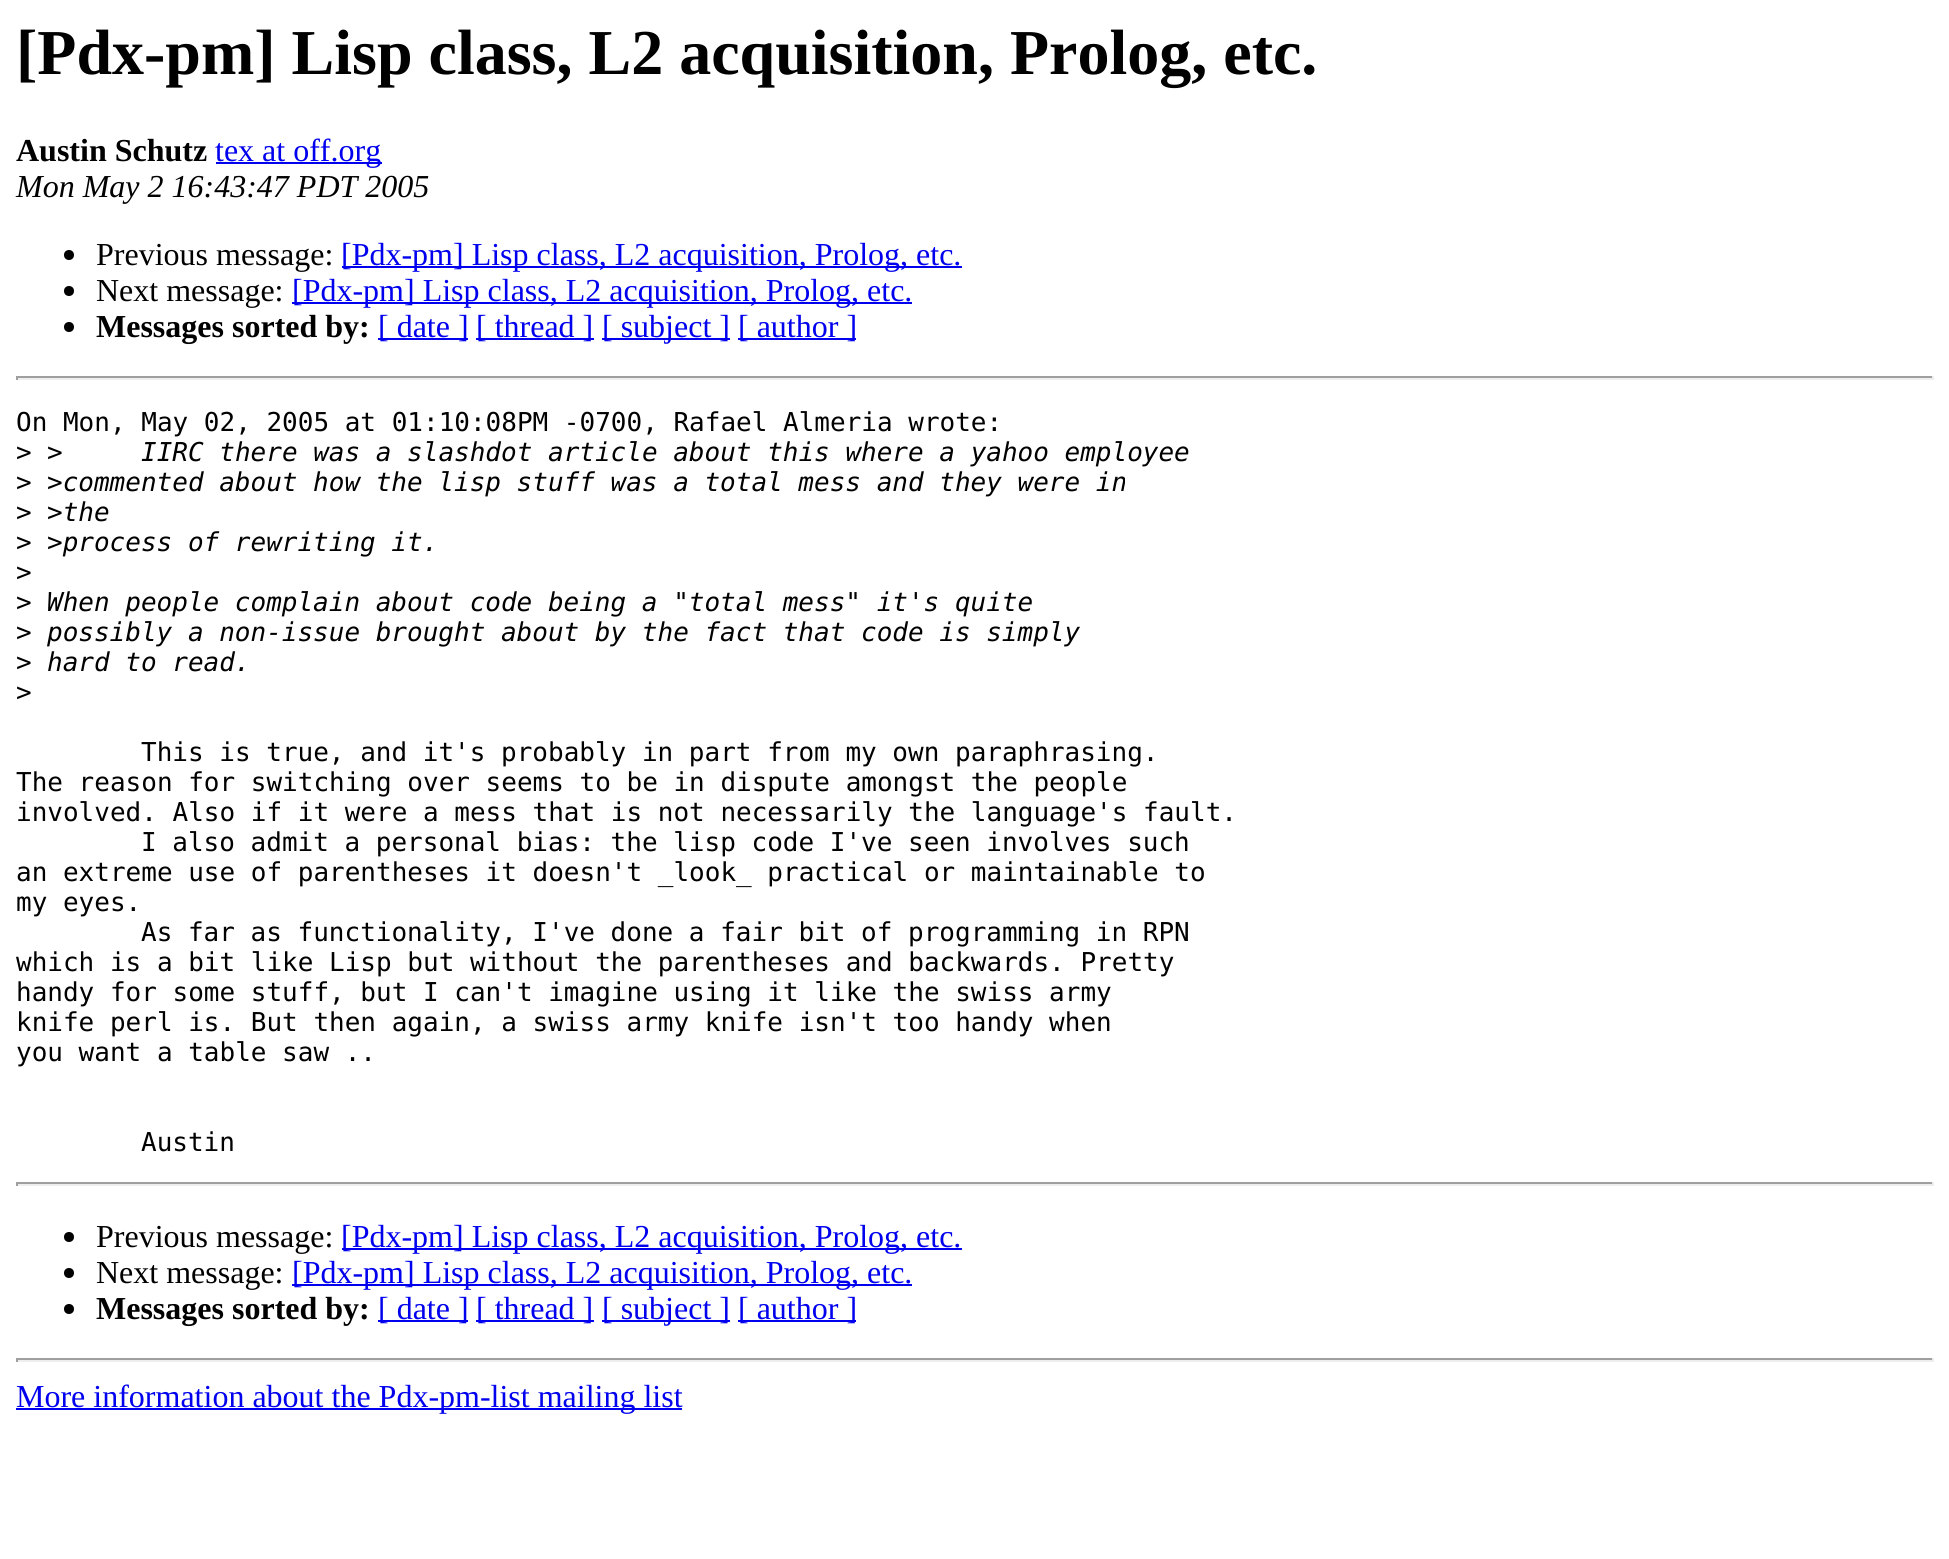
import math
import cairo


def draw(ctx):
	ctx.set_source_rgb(1, 1, 1)
	ctx.paint()
	ctx.select_font_face('Liberation Serif', cairo.FONT_SLANT_NORMAL, cairo.FONT_WEIGHT_BOLD)
	ctx.set_font_size(64)
	ctx.set_source_rgb(0, 0, 0)
	ctx.move_to(16, 74)
	ctx.show_text('[Pdx-pm] Lisp class, L2 acquisition, Prolog, etc.')
	ctx.set_font_size(32)
	ctx.move_to(16, 161)
	ctx.show_text('Austin Schutz')
	ctx.set_source_rgb(0, 0, 0.933)
	ctx.rectangle(216, 162, 166, 2)
	ctx.fill()
	ctx.select_font_face('Liberation Serif')
	ctx.move_to(215, 161)
	ctx.show_text('tex at off.org')
	ctx.select_font_face('Liberation Serif', cairo.FONT_SLANT_ITALIC)
	ctx.set_source_rgb(0, 0, 0)
	ctx.move_to(16, 197)
	ctx.show_text('Mon May 2 16:43:47 PDT 2005')
	ctx.new_path()
	ctx.arc(69, 255, 5, 0, 2 * math.pi)
	ctx.fill()
	ctx.select_font_face('Liberation Serif')
	ctx.move_to(96, 265)
	ctx.show_text('Previous message:')
	ctx.set_source_rgb(0, 0, 0.933)
	ctx.rectangle(342, 266, 620, 2)
	ctx.fill()
	ctx.move_to(341, 265)
	ctx.show_text('[Pdx-pm] Lisp class, L2 acquisition, Prolog, etc.')
	ctx.set_source_rgb(0, 0, 0)
	ctx.new_path()
	ctx.arc(69, 291, 5, 0, 2 * math.pi)
	ctx.fill()
	ctx.move_to(96, 301)
	ctx.show_text('Next message:')
	ctx.set_source_rgb(0, 0, 0.933)
	ctx.rectangle(292, 302, 620, 2)
	ctx.fill()
	ctx.move_to(292, 301)
	ctx.show_text('[Pdx-pm] Lisp class, L2 acquisition, Prolog, etc.')
	ctx.set_source_rgb(0, 0, 0)
	ctx.new_path()
	ctx.arc(69, 327, 5, 0, 2 * math.pi)
	ctx.fill()
	ctx.select_font_face('Liberation Serif', cairo.FONT_SLANT_NORMAL, cairo.FONT_WEIGHT_BOLD)
	ctx.move_to(96, 337)
	ctx.show_text('Messages sorted by:')
	ctx.set_source_rgb(0, 0, 0.933)
	ctx.rectangle(378, 338, 90, 2)
	ctx.fill()
	ctx.select_font_face('Liberation Serif')
	ctx.move_to(378, 337)
	ctx.show_text('[ date ]')
	ctx.rectangle(476, 338, 118, 2)
	ctx.fill()
	ctx.move_to(476, 337)
	ctx.show_text('[ thread ]')
	ctx.rectangle(602, 338, 128, 2)
	ctx.fill()
	ctx.move_to(602, 337)
	ctx.show_text('[ subject ]')
	ctx.rectangle(738, 338, 118, 2)
	ctx.fill()
	ctx.move_to(738, 337)
	ctx.show_text('[ author ]')
	ctx.set_source_rgb(0.624, 0.624, 0.624)
	ctx.rectangle(16, 376, 1918, 2)
	ctx.fill()
	ctx.set_source_rgb(0.933, 0.933, 0.933)
	ctx.rectangle(1932, 376, 2, 4)
	ctx.rectangle(16, 378, 1918, 2)
	ctx.fill()
	ctx.set_source_rgb(0.624, 0.624, 0.624)
	ctx.rectangle(16, 376, 2, 4)
	ctx.fill()
	ctx.select_font_face('DejaVu Sans Mono')
	ctx.set_font_size(26)
	ctx.set_source_rgb(0, 0, 0)
	ctx.move_to(16, 431)
	ctx.show_text('On Mon, May 02, 2005 at 01:10:08PM -0700, Rafael Almeria wrote:')
	ctx.move_to(16, 461)
	ctx.show_text('>')
	ctx.select_font_face('DejaVu Sans Mono', cairo.FONT_SLANT_ITALIC)
	ctx.move_to(47, 461)
	ctx.show_text('>')
	ctx.move_to(141, 461)
	ctx.show_text('IIRC there was a slashdot article about this where a yahoo employee')
	ctx.select_font_face('DejaVu Sans Mono')
	ctx.move_to(16, 491)
	ctx.show_text('>')
	ctx.select_font_face('DejaVu Sans Mono', cairo.FONT_SLANT_ITALIC)
	ctx.move_to(47, 491)
	ctx.show_text('>commented about how the lisp stuff was a total mess and they were in')
	ctx.select_font_face('DejaVu Sans Mono')
	ctx.move_to(16, 521)
	ctx.show_text('>')
	ctx.select_font_face('DejaVu Sans Mono', cairo.FONT_SLANT_ITALIC)
	ctx.move_to(47, 521)
	ctx.show_text('>the')
	ctx.select_font_face('DejaVu Sans Mono')
	ctx.move_to(16, 551)
	ctx.show_text('>')
	ctx.select_font_face('DejaVu Sans Mono', cairo.FONT_SLANT_ITALIC)
	ctx.move_to(47, 551)
	ctx.show_text('>process of rewriting it.')
	ctx.select_font_face('DejaVu Sans Mono')
	ctx.move_to(16, 581)
	ctx.show_text('>')
	ctx.move_to(16, 611)
	ctx.show_text('>')
	ctx.select_font_face('DejaVu Sans Mono', cairo.FONT_SLANT_ITALIC)
	ctx.move_to(47, 611)
	ctx.show_text('When people complain about code being a "total mess" it\'s quite')
	ctx.select_font_face('DejaVu Sans Mono')
	ctx.move_to(16, 641)
	ctx.show_text('>')
	ctx.select_font_face('DejaVu Sans Mono', cairo.FONT_SLANT_ITALIC)
	ctx.move_to(47, 641)
	ctx.show_text('possibly a non-issue brought about by the fact that code is simply')
	ctx.select_font_face('DejaVu Sans Mono')
	ctx.move_to(16, 671)
	ctx.show_text('>')
	ctx.select_font_face('DejaVu Sans Mono', cairo.FONT_SLANT_ITALIC)
	ctx.move_to(47, 671)
	ctx.show_text('hard to read.')
	ctx.select_font_face('DejaVu Sans Mono')
	for x, y, s in [
		(16, 701, '>'),
		(141, 761, 'This is true, and it\'s probably in part from my own paraphrasing.'),
		(16, 791, 'The reason for switching over seems to be in dispute amongst the people'),
		(16, 821, 'involved. Also if it were a mess that is not necessarily the language\'s fault.'),
		(141, 851, 'I also admit a personal bias: the lisp code I\'ve seen involves such'),
		(16, 881, 'an extreme use of parentheses it doesn\'t _look_ practical or maintainable to'),
		(16, 911, 'my eyes.'),
		(141, 941, 'As far as functionality, I\'ve done a fair bit of programming in RPN'),
		(16, 971, 'which is a bit like Lisp but without the parentheses and backwards. Pretty'),
		(16, 1001, 'handy for some stuff, but I can\'t imagine using it like the swiss army'),
		(16, 1031, 'knife perl is. But then again, a swiss army knife isn\'t too handy when'),
		(16, 1061, 'you want a table saw ..'),
		(141, 1151, 'Austin'),
	]:
		ctx.move_to(x, y)
		ctx.show_text(s)
	ctx.set_source_rgb(0.624, 0.624, 0.624)
	ctx.rectangle(16, 1182, 1918, 2)
	ctx.fill()
	ctx.set_source_rgb(0.933, 0.933, 0.933)
	ctx.rectangle(1932, 1182, 2, 4)
	ctx.rectangle(16, 1184, 1918, 2)
	ctx.fill()
	ctx.set_source_rgb(0.624, 0.624, 0.624)
	ctx.rectangle(16, 1182, 2, 4)
	ctx.fill()
	ctx.set_source_rgb(0, 0, 0)
	ctx.arc(69, 1237, 5, 0, 2 * math.pi)
	ctx.fill()
	ctx.select_font_face('Liberation Serif')
	ctx.set_font_size(32)
	ctx.move_to(96, 1247)
	ctx.show_text('Previous message:')
	ctx.set_source_rgb(0, 0, 0.933)
	ctx.rectangle(342, 1248, 620, 2)
	ctx.fill()
	ctx.move_to(341, 1247)
	ctx.show_text('[Pdx-pm] Lisp class, L2 acquisition, Prolog, etc.')
	ctx.set_source_rgb(0, 0, 0)
	ctx.new_path()
	ctx.arc(69, 1273, 5, 0, 2 * math.pi)
	ctx.fill()
	ctx.move_to(96, 1283)
	ctx.show_text('Next message:')
	ctx.set_source_rgb(0, 0, 0.933)
	ctx.rectangle(292, 1284, 620, 2)
	ctx.fill()
	ctx.move_to(292, 1283)
	ctx.show_text('[Pdx-pm] Lisp class, L2 acquisition, Prolog, etc.')
	ctx.set_source_rgb(0, 0, 0)
	ctx.new_path()
	ctx.arc(69, 1309, 5, 0, 2 * math.pi)
	ctx.fill()
	ctx.select_font_face('Liberation Serif', cairo.FONT_SLANT_NORMAL, cairo.FONT_WEIGHT_BOLD)
	ctx.move_to(96, 1319)
	ctx.show_text('Messages sorted by:')
	ctx.set_source_rgb(0, 0, 0.933)
	ctx.rectangle(378, 1320, 90, 2)
	ctx.fill()
	ctx.select_font_face('Liberation Serif')
	ctx.move_to(378, 1319)
	ctx.show_text('[ date ]')
	ctx.rectangle(476, 1320, 118, 2)
	ctx.fill()
	ctx.move_to(476, 1319)
	ctx.show_text('[ thread ]')
	ctx.rectangle(602, 1320, 128, 2)
	ctx.fill()
	ctx.move_to(602, 1319)
	ctx.show_text('[ subject ]')
	ctx.rectangle(738, 1320, 118, 2)
	ctx.fill()
	ctx.move_to(738, 1319)
	ctx.show_text('[ author ]')
	ctx.set_source_rgb(0.624, 0.624, 0.624)
	ctx.rectangle(16, 1358, 1918, 2)
	ctx.fill()
	ctx.set_source_rgb(0.933, 0.933, 0.933)
	ctx.rectangle(1932, 1358, 2, 4)
	ctx.rectangle(16, 1360, 1918, 2)
	ctx.fill()
	ctx.set_source_rgb(0.624, 0.624, 0.624)
	ctx.rectangle(16, 1358, 2, 4)
	ctx.fill()
	ctx.set_source_rgb(0, 0, 0.933)
	ctx.rectangle(16, 1408, 666, 2)
	ctx.fill()
	ctx.move_to(16, 1407)
	ctx.show_text('More information about the Pdx-pm-list mailing list')


surface = cairo.ImageSurface(cairo.FORMAT_RGB24, 1949, 1559)
ctx = cairo.Context(surface)
options = cairo.FontOptions()
options.set_hint_metrics(cairo.HINT_METRICS_OFF)
options.set_hint_style(cairo.HINT_STYLE_NONE)
ctx.set_font_options(options)
ctx.set_miter_limit(4)
draw(ctx)
surface.write_to_png('image.png')
